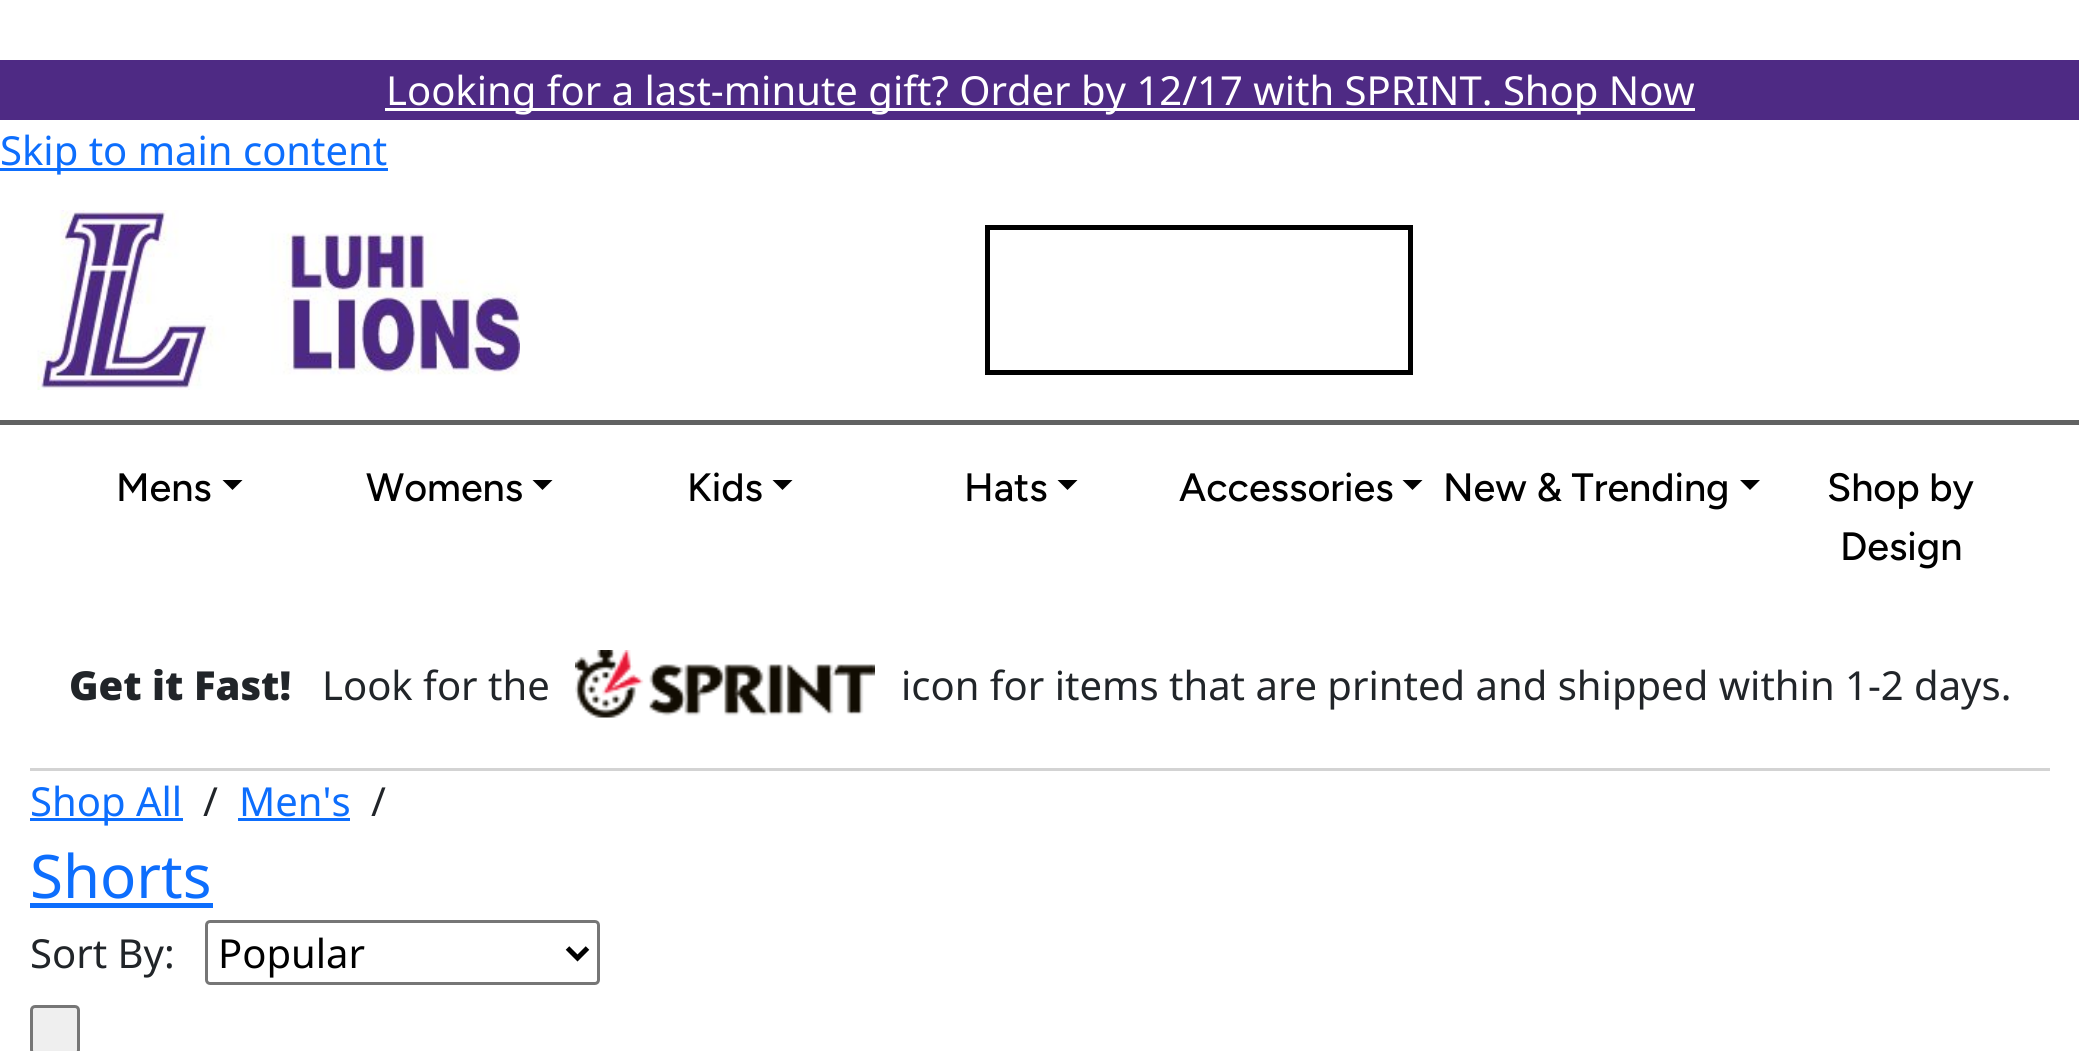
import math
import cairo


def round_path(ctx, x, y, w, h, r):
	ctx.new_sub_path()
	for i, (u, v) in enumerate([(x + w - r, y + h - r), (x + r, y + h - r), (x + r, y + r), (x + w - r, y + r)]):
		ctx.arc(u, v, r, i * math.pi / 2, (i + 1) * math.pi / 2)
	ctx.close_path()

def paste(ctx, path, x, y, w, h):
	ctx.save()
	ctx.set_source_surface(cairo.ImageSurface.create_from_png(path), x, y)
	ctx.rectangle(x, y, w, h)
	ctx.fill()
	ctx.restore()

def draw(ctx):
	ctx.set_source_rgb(1, 1, 1)
	ctx.paint()
	ctx.set_source_rgb(0.306, 0.165, 0.518)
	ctx.rectangle(0, 60, 2079, 60)
	ctx.fill()
	ctx.set_source_rgb(1, 1, 1)
	ctx.rectangle(385, 108, 1310, 3)
	ctx.fill()
	ctx.select_font_face('Noto Sans')
	ctx.set_font_size(40)
	ctx.move_to(386, 105)
	ctx.show_text('Looking for a last-minute gift? Order by 12/17 with SPRINT. Shop Now')
	ctx.set_source_rgb(0.051, 0.431, 0.992)
	ctx.rectangle(0, 168, 388, 3)
	ctx.fill()
	ctx.move_to(0, 165)
	ctx.show_text('Skip to main content')
	ctx.set_source_rgb(0.38, 0.384, 0.384)
	ctx.rectangle(0, 420, 2079, 5)
	ctx.fill()
	paste(ctx, 'media/1.png', 37, 210, 483, 180)
	ctx.rectangle(987.5, 227.5, 423, 145)
	ctx.set_source_rgb(0, 0, 0)
	ctx.set_line_width(5)
	ctx.stroke()
	ctx.select_font_face('Figtree Medium')
	ctx.set_font_size(39.5)
	ctx.move_to(116, 501)
	ctx.show_text('Mens')
	ctx.new_path()
	ctx.move_to(222.5, 480)
	ctx.line_to(242.5, 480)
	ctx.line_to(232.5, 490)
	ctx.close_path()
	ctx.fill()
	ctx.move_to(366, 501)
	ctx.show_text('Womens')
	ctx.new_path()
	ctx.move_to(532.5, 480)
	ctx.line_to(552.5, 480)
	ctx.line_to(542.5, 490)
	ctx.close_path()
	ctx.fill()
	ctx.move_to(687, 501)
	ctx.show_text('Kids')
	ctx.new_path()
	ctx.move_to(772.5, 480)
	ctx.line_to(792.5, 480)
	ctx.line_to(782.5, 490)
	ctx.close_path()
	ctx.fill()
	ctx.move_to(964, 501)
	ctx.show_text('Hats')
	ctx.new_path()
	ctx.move_to(1057.5, 480)
	ctx.line_to(1077.5, 480)
	ctx.line_to(1067.5, 490)
	ctx.close_path()
	ctx.fill()
	ctx.move_to(1179, 501)
	ctx.show_text('Accessories')
	ctx.new_path()
	ctx.move_to(1402.5, 480)
	ctx.line_to(1422.5, 480)
	ctx.line_to(1412.5, 490)
	ctx.close_path()
	ctx.fill()
	ctx.move_to(1443, 501)
	ctx.show_text('New & Trending')
	ctx.new_path()
	ctx.move_to(1740, 480)
	ctx.line_to(1760, 480)
	ctx.line_to(1750, 490)
	ctx.close_path()
	ctx.fill()
	ctx.move_to(1827, 501)
	ctx.show_text('Shop by')
	ctx.move_to(1840, 560)
	ctx.show_text('Design')
	ctx.set_source_rgb(0.827, 0.827, 0.827)
	ctx.rectangle(30, 768, 2020, 3)
	ctx.fill()
	ctx.select_font_face('Noto Sans Black')
	ctx.set_font_size(40)
	ctx.set_source_rgb(0.129, 0.145, 0.161)
	ctx.move_to(69, 700)
	ctx.show_text('Get it Fast!')
	ctx.select_font_face('Noto Sans')
	ctx.move_to(322, 700)
	ctx.show_text('Look for the')
	paste(ctx, 'media/2.png', 575, 650, 300, 68)
	ctx.move_to(901, 700)
	ctx.show_text('icon for items that are printed and shipped within 1-2 days.')
	ctx.set_source_rgb(0.051, 0.431, 0.992)
	ctx.rectangle(30, 818, 153, 3)
	ctx.fill()
	ctx.move_to(30, 816)
	ctx.show_text('Shop All')
	ctx.set_source_rgb(0.129, 0.145, 0.161)
	ctx.move_to(203, 816)
	ctx.show_text('/')
	ctx.set_source_rgb(0.051, 0.431, 0.992)
	ctx.move_to(239, 816)
	ctx.show_text('Men\'s')
	ctx.rectangle(238, 818, 112, 3)
	ctx.fill()
	ctx.set_source_rgb(0.129, 0.145, 0.161)
	ctx.move_to(371, 816)
	ctx.show_text('/')
	ctx.set_font_size(60)
	ctx.set_source_rgb(0.051, 0.431, 0.992)
	ctx.move_to(30, 898)
	ctx.show_text('Shorts')
	ctx.rectangle(30, 903, 183, 5)
	ctx.fill()
	ctx.set_font_size(40)
	ctx.set_source_rgb(0.129, 0.145, 0.161)
	ctx.move_to(30, 968)
	ctx.show_text('Sort By:')
	round_path(ctx, 206.5, 921.5, 392, 62, 3.5)
	ctx.set_source_rgb(0.463, 0.463, 0.463)
	ctx.set_line_width(3)
	ctx.stroke()
	ctx.new_path()
	ctx.move_to(567.5, 948)
	ctx.line_to(577.5, 958)
	ctx.line_to(587.5, 948)
	ctx.set_source_rgb(0, 0, 0)
	ctx.set_line_width(5)
	ctx.stroke()
	ctx.move_to(218, 968)
	ctx.show_text('Popular')
	ctx.set_source_rgb(0.937, 0.937, 0.937)
	round_path(ctx, 31.5, 1006.5, 47, 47, 3.5)
	ctx.fill_preserve()
	ctx.set_source_rgb(0.463, 0.463, 0.463)
	ctx.set_line_width(3)
	ctx.stroke()


surface = cairo.ImageSurface(cairo.FORMAT_RGB24, 2079, 1051)
ctx = cairo.Context(surface)
options = cairo.FontOptions()
options.set_hint_metrics(cairo.HINT_METRICS_OFF)
options.set_hint_style(cairo.HINT_STYLE_NONE)
ctx.set_font_options(options)
ctx.set_miter_limit(4)
draw(ctx)
surface.write_to_png('image.png')
